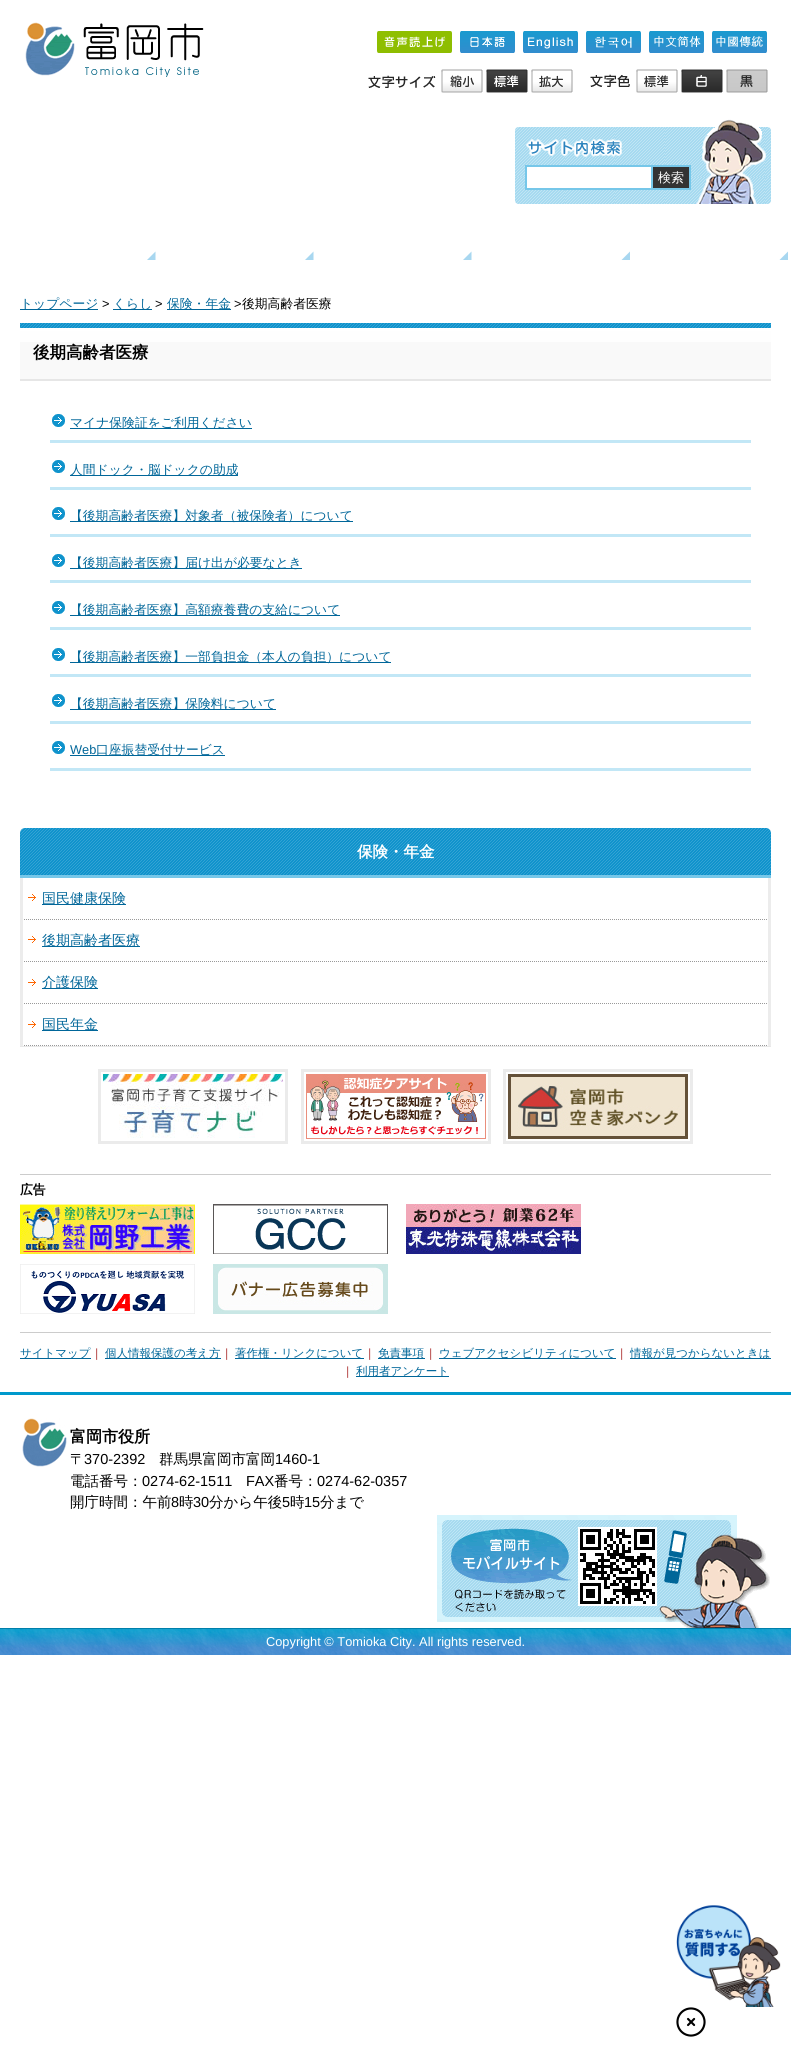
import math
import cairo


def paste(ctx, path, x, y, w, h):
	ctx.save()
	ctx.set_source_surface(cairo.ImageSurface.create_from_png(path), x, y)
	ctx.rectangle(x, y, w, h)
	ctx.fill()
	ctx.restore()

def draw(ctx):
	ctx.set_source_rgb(1, 1, 1)
	ctx.paint()
	paste(ctx, 'media/1.png', 25, 22, 179, 55)
	paste(ctx, 'media/2.png', 377, 31, 75, 22)
	paste(ctx, 'media/3.png', 460, 31, 55, 22)
	paste(ctx, 'media/4.png', 523, 31, 55, 22)
	paste(ctx, 'media/5.png', 586, 31, 55, 22)
	paste(ctx, 'media/6.png', 649, 31, 55, 22)
	paste(ctx, 'media/7.png', 712, 31, 55, 22)
	paste(ctx, 'media/8.png', 368, 75, 68, 13)
	paste(ctx, 'media/9.png', 441, 69, 42, 24)
	paste(ctx, 'media/10.png', 486, 69, 42, 24)
	paste(ctx, 'media/11.png', 531, 69, 42, 24)
	paste(ctx, 'media/12.png', 590, 74, 40, 13)
	paste(ctx, 'media/13.png', 636, 69, 42, 24)
	paste(ctx, 'media/14.png', 681, 69, 42, 24)
	paste(ctx, 'media/15.png', 726, 69, 42, 24)
	paste(ctx, 'media/16.png', 515, 127, 256, 77)
	paste(ctx, 'media/17.png', 526, 139, 96, 18)
	ctx.set_source_rgb(1, 1, 1)
	ctx.rectangle(527, 167, 124, 21)
	ctx.fill()
	ctx.set_source_rgb(0.463, 0.78, 0.914)
	ctx.rectangle(525, 165, 126, 2)
	ctx.rectangle(525, 188, 126, 2)
	ctx.rectangle(525, 165, 2, 25)
	ctx.fill()
	ctx.set_source_rgb(0.2, 0.2, 0.2)
	ctx.rectangle(652, 166, 38, 23)
	ctx.fill_preserve()
	ctx.set_source_rgb(0.463, 0.78, 0.914)
	ctx.stroke()
	ctx.select_font_face('WenQuanYi Zen Hei Medium')
	ctx.set_font_size(13)
	ctx.set_source_rgb(1, 1, 1)
	ctx.move_to(658, 182)
	ctx.show_text('検索')
	paste(ctx, 'media/18.png', 696, 119, 70, 85)
	ctx.set_source_rgb(0.659, 0.843, 0.941)
	ctx.new_path()
	ctx.move_to(147, 260)
	ctx.line_to(155.5, 251.5)
	ctx.line_to(155.5, 260)
	ctx.close_path()
	ctx.fill()
	ctx.new_path()
	ctx.move_to(305, 260)
	ctx.line_to(313.5, 251.5)
	ctx.line_to(313.5, 260)
	ctx.close_path()
	ctx.fill()
	ctx.new_path()
	ctx.move_to(463, 260)
	ctx.line_to(471.5, 251.5)
	ctx.line_to(471.5, 260)
	ctx.close_path()
	ctx.fill()
	ctx.new_path()
	ctx.move_to(621.5, 260)
	ctx.line_to(630, 251.5)
	ctx.line_to(630, 260)
	ctx.close_path()
	ctx.fill()
	ctx.new_path()
	ctx.move_to(779.5, 260)
	ctx.line_to(788, 251.5)
	ctx.line_to(788, 260)
	ctx.close_path()
	ctx.fill()
	ctx.set_source_rgb(0, 0.4, 0.6)
	ctx.rectangle(20, 309, 78, 1)
	ctx.fill()
	ctx.set_font_size(12.8)
	ctx.move_to(20, 308)
	ctx.show_text('トップページ')
	ctx.select_font_face('Liberation Sans')
	ctx.set_source_rgb(0, 0, 0)
	ctx.move_to(102, 308)
	ctx.show_text('>')
	ctx.set_source_rgb(0, 0.4, 0.6)
	ctx.rectangle(113, 309, 39, 1)
	ctx.fill()
	ctx.select_font_face('WenQuanYi Zen Hei Medium')
	ctx.move_to(113, 308)
	ctx.show_text('くらし')
	ctx.select_font_face('Liberation Sans')
	ctx.set_source_rgb(0, 0, 0)
	ctx.move_to(155, 308)
	ctx.show_text('>')
	ctx.set_source_rgb(0, 0.4, 0.6)
	ctx.rectangle(167, 309, 64, 1)
	ctx.fill()
	ctx.select_font_face('WenQuanYi Zen Hei Medium')
	ctx.move_to(167, 308)
	ctx.show_text('保険・年金')
	ctx.select_font_face('Liberation Sans')
	ctx.set_source_rgb(0, 0, 0)
	ctx.move_to(234, 308)
	ctx.show_text('>')
	ctx.select_font_face('WenQuanYi Zen Hei Medium')
	ctx.move_to(242, 308)
	ctx.show_text('後期高齢者医療')
	ctx.set_source_rgb(0.976, 0.976, 0.976)
	ctx.rectangle(20, 342, 751, 37)
	ctx.fill()
	paste(ctx, 'media/19.png', 20, 323, 751, 19)
	ctx.set_source_rgb(0.902, 0.902, 0.902)
	ctx.rectangle(20, 379, 751, 2)
	ctx.fill()
	ctx.select_font_face('WenQuanYi Zen Hei', cairo.FONT_SLANT_NORMAL, cairo.FONT_WEIGHT_BOLD)
	ctx.set_font_size(16.5)
	ctx.set_source_rgb(0, 0, 0)
	ctx.move_to(33, 358)
	ctx.show_text('後期高齢者医療')
	paste(ctx, 'media/20.png', 52, 414, 13, 13)
	ctx.set_source_rgb(0.761, 0.906, 0.961)
	ctx.rectangle(50, 440, 701, 3)
	ctx.fill()
	ctx.set_source_rgb(0, 0.4, 0.6)
	ctx.rectangle(70, 428, 182, 1)
	ctx.fill()
	ctx.select_font_face('WenQuanYi Zen Hei Medium')
	ctx.set_font_size(12.8)
	ctx.move_to(70, 427)
	ctx.show_text('マイナ保険証をご利用ください')
	paste(ctx, 'media/20.png', 52, 460, 13, 13)
	ctx.set_source_rgb(0.761, 0.906, 0.961)
	ctx.rectangle(50, 487, 701, 3)
	ctx.fill()
	ctx.set_source_rgb(0, 0.4, 0.6)
	ctx.rectangle(70, 475, 168, 1)
	ctx.fill()
	ctx.move_to(70, 474)
	ctx.show_text('人間ドック・脳ドックの助成')
	paste(ctx, 'media/20.png', 52, 507, 13, 13)
	ctx.set_source_rgb(0.761, 0.906, 0.961)
	ctx.rectangle(50, 534, 701, 3)
	ctx.fill()
	ctx.set_source_rgb(0, 0.4, 0.6)
	ctx.rectangle(70, 521, 283, 1)
	ctx.fill()
	ctx.move_to(70, 520)
	ctx.show_text('【後期高齢者医療】対象者（被保険者）について')
	paste(ctx, 'media/20.png', 52, 554, 13, 13)
	ctx.set_source_rgb(0.761, 0.906, 0.961)
	ctx.rectangle(50, 580, 701, 3)
	ctx.fill()
	ctx.set_source_rgb(0, 0.4, 0.6)
	ctx.rectangle(70, 568, 232, 1)
	ctx.fill()
	ctx.move_to(70, 567)
	ctx.show_text('【後期高齢者医療】届け出が必要なとき')
	paste(ctx, 'media/20.png', 52, 601, 13, 13)
	ctx.set_source_rgb(0.761, 0.906, 0.961)
	ctx.rectangle(50, 627, 701, 3)
	ctx.fill()
	ctx.set_source_rgb(0, 0.4, 0.6)
	ctx.rectangle(70, 615, 270, 1)
	ctx.fill()
	ctx.move_to(70, 614)
	ctx.show_text('【後期高齢者医療】高額療養費の支給について')
	paste(ctx, 'media/20.png', 52, 648, 13, 13)
	ctx.set_source_rgb(0.761, 0.906, 0.961)
	ctx.rectangle(50, 674, 701, 3)
	ctx.fill()
	ctx.set_source_rgb(0, 0.4, 0.6)
	ctx.rectangle(70, 662, 321, 1)
	ctx.fill()
	ctx.move_to(70, 661)
	ctx.show_text('【後期高齢者医療】一部負担金（本人の負担）について')
	paste(ctx, 'media/20.png', 52, 694, 13, 13)
	ctx.set_source_rgb(0.761, 0.906, 0.961)
	ctx.rectangle(50, 721, 701, 3)
	ctx.fill()
	ctx.set_source_rgb(0, 0.4, 0.6)
	ctx.rectangle(70, 709, 206, 1)
	ctx.fill()
	ctx.move_to(70, 708)
	ctx.show_text('【後期高齢者医療】保険料について')
	paste(ctx, 'media/20.png', 52, 741, 13, 13)
	ctx.set_source_rgb(0.761, 0.906, 0.961)
	ctx.rectangle(50, 768, 701, 3)
	ctx.fill()
	ctx.select_font_face('Liberation Sans')
	ctx.set_source_rgb(0, 0.4, 0.6)
	ctx.move_to(70, 754)
	ctx.show_text('Web')
	ctx.rectangle(70, 755, 155, 1)
	ctx.fill()
	ctx.select_font_face('WenQuanYi Zen Hei Medium')
	ctx.move_to(96, 754)
	ctx.show_text('口座振替受付サービス')
	ctx.set_source_rgb(0.906, 0.906, 0.906)
	ctx.rectangle(20, 1046, 751, 1)
	ctx.fill()
	paste(ctx, 'media/21.png', 20, 828, 751, 47)
	ctx.set_source_rgb(0.463, 0.78, 0.914)
	ctx.rectangle(20, 875, 751, 3)
	ctx.fill()
	ctx.select_font_face('WenQuanYi Zen Hei', cairo.FONT_SLANT_NORMAL, cairo.FONT_WEIGHT_BOLD)
	ctx.set_font_size(15.5)
	ctx.set_source_rgb(1, 1, 1)
	ctx.move_to(357, 857)
	ctx.show_text('保険・年金')
	ctx.set_source_rgb(0.922, 0.922, 0.922)
	ctx.rectangle(768, 878, 3, 168)
	ctx.fill()
	ctx.rectangle(20, 878, 3, 168)
	ctx.fill()
	paste(ctx, 'media/22.png', 28, 894, 8, 7)
	ctx.new_path()
	ctx.move_to(24, 919.5)
	ctx.line_to(767, 919.5)
	ctx.set_source_rgb(0.6, 0.6, 0.6)
	ctx.set_line_width(1)
	ctx.set_dash([1, 1])
	ctx.stroke()
	ctx.set_source_rgb(0, 0.4, 0.6)
	ctx.rectangle(42, 904, 84, 1)
	ctx.fill()
	ctx.select_font_face('WenQuanYi Zen Hei Medium')
	ctx.set_font_size(14)
	ctx.move_to(42, 903)
	ctx.show_text('国民健康保険')
	paste(ctx, 'media/22.png', 28, 936, 8, 7)
	ctx.new_path()
	ctx.move_to(24, 961.5)
	ctx.line_to(767, 961.5)
	ctx.set_source_rgb(0.6, 0.6, 0.6)
	ctx.stroke()
	ctx.set_source_rgb(0, 0.4, 0.6)
	ctx.rectangle(42, 946, 98, 1)
	ctx.fill()
	ctx.move_to(42, 945)
	ctx.show_text('後期高齢者医療')
	paste(ctx, 'media/22.png', 28, 979, 8, 7)
	ctx.new_path()
	ctx.move_to(24, 1003.5)
	ctx.line_to(767, 1003.5)
	ctx.set_source_rgb(0.6, 0.6, 0.6)
	ctx.stroke()
	ctx.set_source_rgb(0, 0.4, 0.6)
	ctx.rectangle(42, 988, 56, 1)
	ctx.fill()
	ctx.move_to(42, 987)
	ctx.show_text('介護保険')
	paste(ctx, 'media/22.png', 28, 1021, 8, 7)
	ctx.new_path()
	ctx.move_to(24, 1045.5)
	ctx.line_to(767, 1045.5)
	ctx.set_source_rgb(0.6, 0.6, 0.6)
	ctx.stroke()
	ctx.set_source_rgb(0, 0.4, 0.6)
	ctx.rectangle(42, 1030, 56, 1)
	ctx.fill()
	ctx.move_to(42, 1029)
	ctx.show_text('国民年金')
	ctx.rectangle(99.5, 1070.5, 187, 72)
	ctx.set_source_rgb(0.918, 0.918, 0.918)
	ctx.set_line_width(3)
	ctx.set_dash([])
	ctx.stroke()
	paste(ctx, 'media/23.png', 103, 1074, 180, 64)
	ctx.rectangle(302.5, 1070.5, 187, 72)
	ctx.stroke()
	paste(ctx, 'media/24.png', 306, 1074, 180, 65)
	ctx.rectangle(504.5, 1070.5, 187, 72)
	ctx.stroke()
	paste(ctx, 'media/25.png', 508, 1074, 180, 65)
	ctx.set_source_rgb(0.8, 0.8, 0.8)
	ctx.rectangle(20, 1332, 751, 1)
	ctx.fill()
	ctx.rectangle(20, 1174, 751, 1)
	ctx.fill()
	ctx.select_font_face('WenQuanYi Zen Hei', cairo.FONT_SLANT_NORMAL, cairo.FONT_WEIGHT_BOLD)
	ctx.set_font_size(12.8)
	ctx.set_source_rgb(0, 0, 0)
	ctx.move_to(20, 1194)
	ctx.show_text('広告')
	paste(ctx, 'media/26.png', 20, 1204, 175, 50)
	paste(ctx, 'media/27.png', 213, 1204, 175, 50)
	paste(ctx, 'media/28.png', 406, 1204, 175, 50)
	paste(ctx, 'media/29.png', 20, 1264, 175, 50)
	paste(ctx, 'media/30.png', 213, 1264, 175, 50)
	ctx.set_source_rgb(0, 0.6, 0.8)
	ctx.rectangle(0, 1392, 791, 3)
	ctx.fill()
	ctx.set_source_rgb(0, 0.4, 0.6)
	ctx.rectangle(20, 1358, 71, 1)
	ctx.fill()
	ctx.select_font_face('WenQuanYi Zen Hei Medium')
	ctx.set_font_size(11.5)
	ctx.move_to(20, 1357)
	ctx.show_text('サイトマップ')
	ctx.set_source_rgb(0.6, 0, 0)
	ctx.move_to(91, 1357)
	ctx.show_text('｜')
	ctx.set_source_rgb(0, 0.4, 0.6)
	ctx.rectangle(105, 1358, 116, 1)
	ctx.fill()
	ctx.move_to(105, 1357)
	ctx.show_text('個人情報保護の考え方')
	ctx.set_source_rgb(0.6, 0, 0)
	ctx.move_to(221, 1357)
	ctx.show_text('｜')
	ctx.set_source_rgb(0, 0.4, 0.6)
	ctx.rectangle(235, 1358, 129, 1)
	ctx.fill()
	ctx.move_to(235, 1357)
	ctx.show_text('著作権・リンクについて')
	ctx.set_source_rgb(0.6, 0, 0)
	ctx.move_to(364, 1357)
	ctx.show_text('｜')
	ctx.set_source_rgb(0, 0.4, 0.6)
	ctx.rectangle(378, 1358, 47, 1)
	ctx.fill()
	ctx.move_to(378, 1357)
	ctx.show_text('免責事項')
	ctx.set_source_rgb(0.6, 0, 0)
	ctx.move_to(425, 1357)
	ctx.show_text('｜')
	ctx.set_source_rgb(0, 0.4, 0.6)
	ctx.rectangle(439, 1358, 177, 1)
	ctx.fill()
	ctx.move_to(439, 1357)
	ctx.show_text('ウェブアクセシビリティについて')
	ctx.set_source_rgb(0.6, 0, 0)
	ctx.move_to(616, 1357)
	ctx.show_text('｜')
	ctx.set_source_rgb(0, 0.4, 0.6)
	ctx.rectangle(630, 1358, 141, 1)
	ctx.fill()
	ctx.move_to(630, 1357)
	ctx.show_text('情報が見つからないときは')
	ctx.set_source_rgb(0.6, 0, 0)
	ctx.move_to(342, 1375)
	ctx.show_text('｜')
	ctx.set_source_rgb(0, 0.4, 0.6)
	ctx.rectangle(356, 1376, 93, 1)
	ctx.fill()
	ctx.move_to(356, 1375)
	ctx.show_text('利用者アンケート')
	paste(ctx, 'media/31.png', 22, 1418, 45, 49)
	paste(ctx, 'media/32.png', 437, 1515, 333, 113)
	ctx.select_font_face('WenQuanYi Zen Hei', cairo.FONT_SLANT_NORMAL, cairo.FONT_WEIGHT_BOLD)
	ctx.set_font_size(16)
	ctx.set_source_rgb(0, 0, 0)
	ctx.move_to(70, 1442)
	ctx.show_text('富岡市役所')
	ctx.select_font_face('WenQuanYi Zen Hei Medium')
	ctx.set_font_size(14.5)
	ctx.move_to(70, 1464)
	ctx.show_text('〒')
	ctx.select_font_face('Liberation Sans')
	ctx.move_to(84, 1464)
	ctx.show_text('370-2392')
	ctx.select_font_face('WenQuanYi Zen Hei Medium')
	ctx.move_to(159, 1464)
	ctx.show_text('群馬県富岡市富岡')
	ctx.select_font_face('Liberation Sans')
	ctx.move_to(275, 1464)
	ctx.show_text('1460-1')
	ctx.select_font_face('WenQuanYi Zen Hei Medium')
	ctx.move_to(70, 1486)
	ctx.show_text('電話番号：')
	ctx.select_font_face('Liberation Sans')
	ctx.move_to(142, 1486)
	ctx.show_text('0274-62-1511')
	ctx.move_to(246, 1486)
	ctx.show_text('FAX')
	ctx.select_font_face('WenQuanYi Zen Hei Medium')
	ctx.move_to(274, 1486)
	ctx.show_text('番号：')
	ctx.select_font_face('Liberation Sans')
	ctx.move_to(317, 1486)
	ctx.show_text('0274-62-0357')
	ctx.select_font_face('WenQuanYi Zen Hei Medium')
	ctx.move_to(70, 1507)
	ctx.show_text('開庁時間：午前')
	ctx.select_font_face('Liberation Sans')
	ctx.move_to(171, 1507)
	ctx.show_text('8')
	ctx.select_font_face('WenQuanYi Zen Hei Medium')
	ctx.move_to(179, 1507)
	ctx.show_text('時')
	ctx.select_font_face('Liberation Sans')
	ctx.move_to(193, 1507)
	ctx.show_text('30')
	ctx.select_font_face('WenQuanYi Zen Hei Medium')
	ctx.move_to(209, 1507)
	ctx.show_text('分から午後')
	ctx.select_font_face('Liberation Sans')
	ctx.move_to(282, 1507)
	ctx.show_text('5')
	ctx.select_font_face('WenQuanYi Zen Hei Medium')
	ctx.move_to(290, 1507)
	ctx.show_text('時')
	ctx.select_font_face('Liberation Sans')
	ctx.move_to(304, 1507)
	ctx.show_text('15')
	ctx.select_font_face('WenQuanYi Zen Hei Medium')
	ctx.move_to(320, 1507)
	ctx.show_text('分まで')
	ctx.set_source_rgb(0, 0.498, 0.667)
	ctx.rectangle(0, 1628, 791, 1)
	ctx.fill()
	paste(ctx, 'media/33.png', 0, 1629, 791, 26)
	ctx.select_font_face('Liberation Sans')
	ctx.set_font_size(12.8)
	ctx.set_source_rgb(1, 1, 1)
	ctx.move_to(266, 1646)
	ctx.show_text('Copyright © Tomioka City. All rights reserved.')
	paste(ctx, 'media/34.png', 676, 1905, 105, 102)
	paste(ctx, 'media/35.png', 676, 2007, 30, 30)


surface = cairo.ImageSurface(cairo.FORMAT_RGB24, 791, 2051)
ctx = cairo.Context(surface)
options = cairo.FontOptions()
options.set_hint_metrics(cairo.HINT_METRICS_OFF)
options.set_hint_style(cairo.HINT_STYLE_NONE)
ctx.set_font_options(options)
ctx.set_miter_limit(4)
draw(ctx)
surface.write_to_png('image.png')
